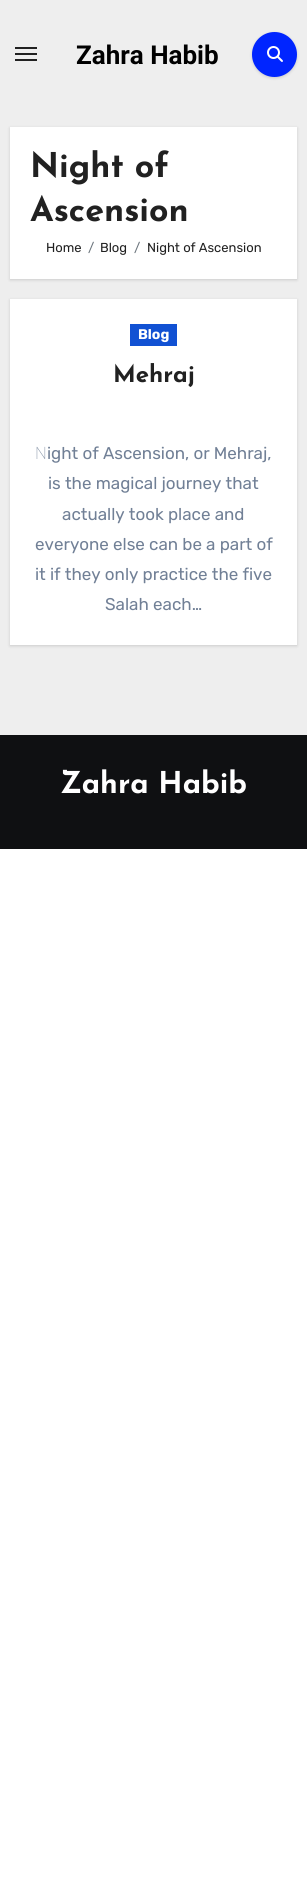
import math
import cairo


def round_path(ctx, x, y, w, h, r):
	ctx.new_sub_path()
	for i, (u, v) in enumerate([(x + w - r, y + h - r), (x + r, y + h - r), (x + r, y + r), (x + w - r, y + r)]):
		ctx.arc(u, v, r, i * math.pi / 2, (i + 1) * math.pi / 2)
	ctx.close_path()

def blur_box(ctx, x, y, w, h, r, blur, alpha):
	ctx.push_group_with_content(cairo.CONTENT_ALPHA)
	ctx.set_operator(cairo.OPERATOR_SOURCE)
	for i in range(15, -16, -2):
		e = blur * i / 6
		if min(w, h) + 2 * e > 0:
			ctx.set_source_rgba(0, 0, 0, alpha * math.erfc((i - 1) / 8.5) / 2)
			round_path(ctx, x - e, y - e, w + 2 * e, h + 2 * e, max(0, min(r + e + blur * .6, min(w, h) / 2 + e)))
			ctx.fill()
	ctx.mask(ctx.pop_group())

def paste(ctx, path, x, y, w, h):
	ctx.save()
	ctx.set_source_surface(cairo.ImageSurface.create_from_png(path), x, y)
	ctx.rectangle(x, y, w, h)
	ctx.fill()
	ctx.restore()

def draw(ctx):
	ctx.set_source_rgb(1, 1, 1)
	ctx.paint()
	ctx.set_source_rgb(0.933, 0.933, 0.933)
	ctx.rectangle(0, 0, 307, 735)
	ctx.fill()
	ctx.set_source_rgb(0.129, 0.129, 0.129)
	ctx.rectangle(15, 47, 22, 2)
	ctx.rectangle(15, 53, 22, 2)
	ctx.rectangle(15, 59, 22, 2)
	ctx.fill()
	ctx.select_font_face('Roboto', cairo.FONT_SLANT_NORMAL, cairo.FONT_WEIGHT_BOLD)
	ctx.set_font_size(26)
	ctx.set_source_rgb(0, 0, 0)
	ctx.move_to(76, 64)
	ctx.show_text('Zahra Habib')
	ctx.set_source_rgb(0, 0, 0)
	blur_box(ctx, 252, 33, 45, 45, 22.5, 1.5, 0.15)
	ctx.set_source_rgb(0, 0.145, 1)
	ctx.arc(274.5, 54.5, 22.5, 0, 2 * math.pi)
	ctx.fill()
	paste(ctx, 'media/1.png', 267, 46, 16, 16)
	ctx.set_source_rgb(0, 0, 0)
	blur_box(ctx, 10, 128, 287, 152, 0, 1.5, 0.15)
	ctx.set_source_rgb(1, 1, 1)
	ctx.rectangle(10, 127, 287, 152)
	ctx.fill()
	ctx.select_font_face('Josefin Sans', cairo.FONT_SLANT_NORMAL, cairo.FONT_WEIGHT_BOLD)
	ctx.set_font_size(34)
	ctx.set_source_rgb(0.129, 0.129, 0.129)
	ctx.move_to(30, 177)
	ctx.show_text('Night of')
	ctx.move_to(30, 221)
	ctx.show_text('Ascension')
	ctx.select_font_face('Rubik Light')
	ctx.set_font_size(13)
	ctx.move_to(46, 252)
	ctx.show_text('Home')
	ctx.set_source_rgb(0.424, 0.459, 0.49)
	ctx.move_to(88, 252)
	ctx.show_text('/')
	ctx.set_source_rgb(0.129, 0.129, 0.129)
	ctx.move_to(100, 252)
	ctx.show_text('Blog')
	ctx.set_source_rgb(0.424, 0.459, 0.49)
	ctx.move_to(134, 252)
	ctx.show_text('/')
	ctx.set_source_rgb(0.129, 0.129, 0.129)
	ctx.move_to(147, 252)
	ctx.show_text('Night of Ascension')
	ctx.set_source_rgb(0, 0, 0)
	blur_box(ctx, 10, 300, 287, 346, 0, 1.5, 0.15)
	ctx.set_source_rgb(1, 1, 1)
	ctx.rectangle(10, 299, 287, 346)
	ctx.fill()
	ctx.set_source_rgb(0.067, 0.318, 0.827)
	ctx.rectangle(130, 324, 47, 22)
	ctx.fill()
	ctx.select_font_face('Rubik', cairo.FONT_SLANT_NORMAL, cairo.FONT_WEIGHT_BOLD)
	ctx.set_font_size(14)
	ctx.set_source_rgb(1, 1, 1)
	ctx.move_to(138, 339)
	ctx.show_text('Blog')
	ctx.select_font_face('Josefin Sans', cairo.FONT_SLANT_NORMAL, cairo.FONT_WEIGHT_BOLD)
	ctx.set_font_size(24)
	ctx.set_source_rgb(0.129, 0.129, 0.129)
	ctx.move_to(113, 382)
	ctx.show_text('Mehraj')
	ctx.select_font_face('Noto Sans Thin')
	ctx.set_font_size(17)
	ctx.set_source_rgb(0.443, 0.502, 0.588)
	ctx.move_to(35, 459)
	ctx.show_text('N')
	ctx.select_font_face('Rubik Light')
	for x, y, s in [
		(47, 459, 'ight of Ascension, or Mehraj,'),
		(48, 489, 'is the magical journey that'),
		(62, 520, 'actually took place and'),
		(35, 550, 'everyone else can be a part of'),
		(35, 580, 'it if they only practice the five'),
		(105, 610, 'Salah each…'),
	]:
		ctx.move_to(x, y)
		ctx.show_text(s)
	ctx.set_source_rgb(0.059, 0.063, 0.071)
	ctx.rectangle(0, 735, 307, 114)
	ctx.fill()
	ctx.select_font_face('Josefin Sans', cairo.FONT_SLANT_NORMAL, cairo.FONT_WEIGHT_BOLD)
	ctx.set_font_size(30)
	ctx.set_source_rgb(1, 1, 1)
	ctx.move_to(60, 793)
	ctx.show_text('Zahra Habib')


surface = cairo.ImageSurface(cairo.FORMAT_RGB24, 307, 1901)
ctx = cairo.Context(surface)
options = cairo.FontOptions()
options.set_hint_metrics(cairo.HINT_METRICS_OFF)
options.set_hint_style(cairo.HINT_STYLE_NONE)
ctx.set_font_options(options)
ctx.set_miter_limit(4)
draw(ctx)
surface.write_to_png('image.png')
